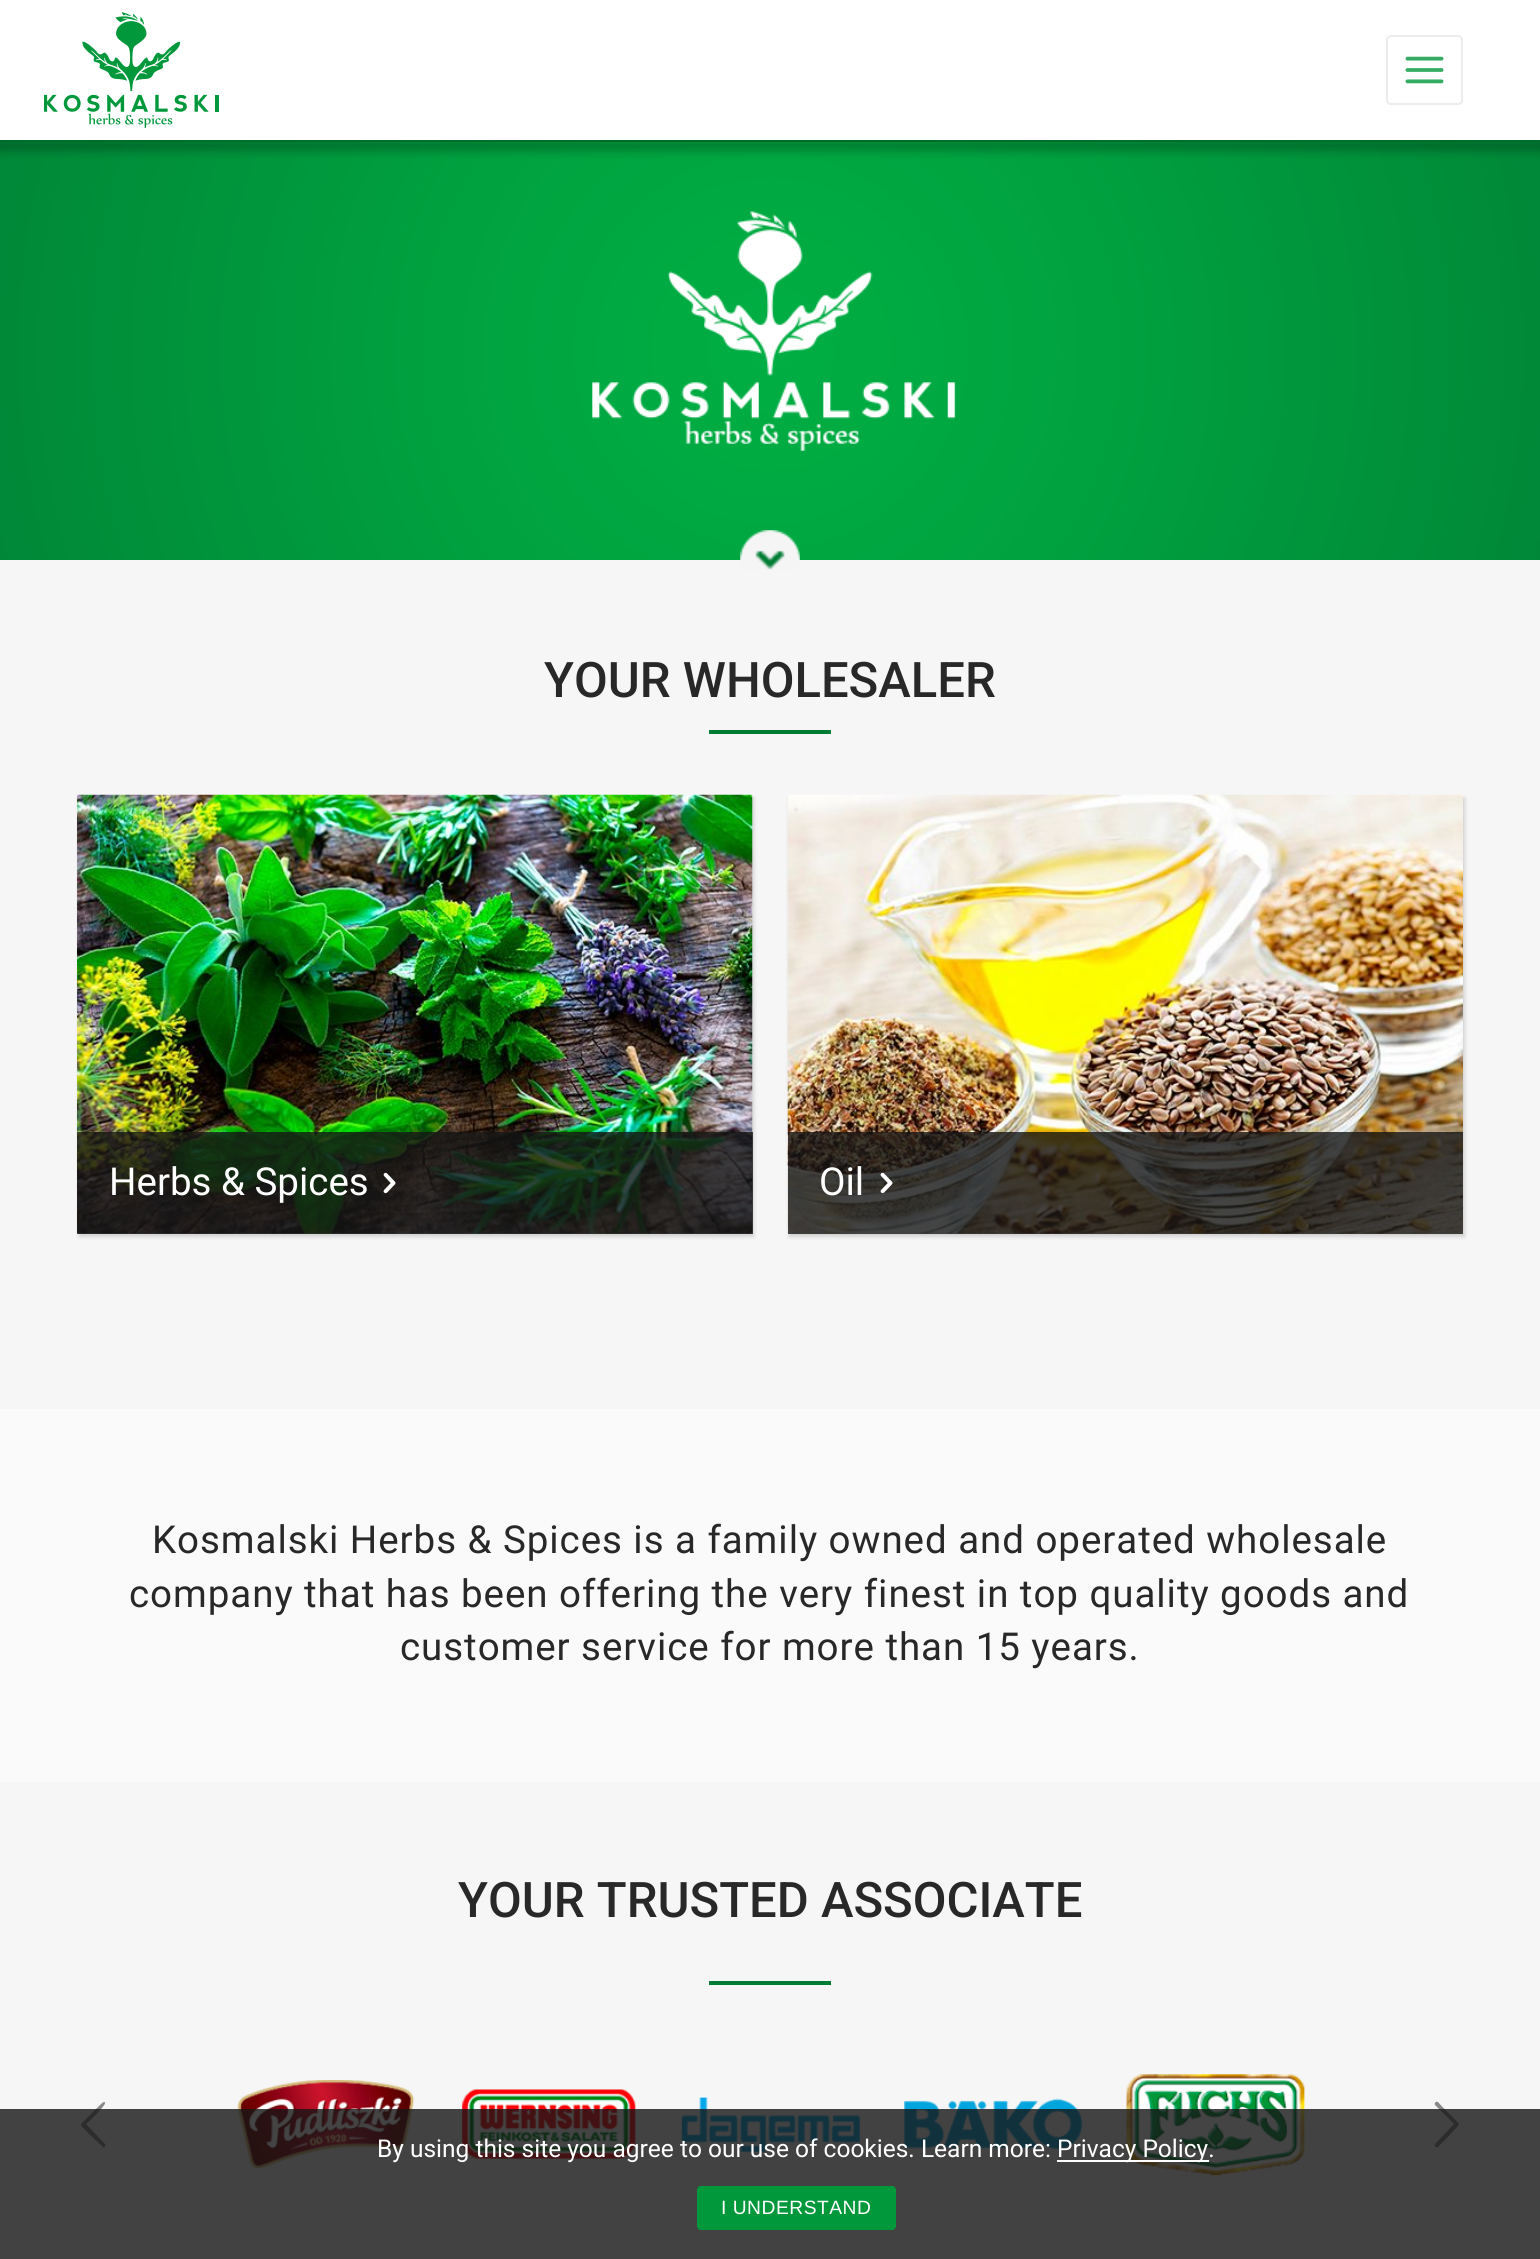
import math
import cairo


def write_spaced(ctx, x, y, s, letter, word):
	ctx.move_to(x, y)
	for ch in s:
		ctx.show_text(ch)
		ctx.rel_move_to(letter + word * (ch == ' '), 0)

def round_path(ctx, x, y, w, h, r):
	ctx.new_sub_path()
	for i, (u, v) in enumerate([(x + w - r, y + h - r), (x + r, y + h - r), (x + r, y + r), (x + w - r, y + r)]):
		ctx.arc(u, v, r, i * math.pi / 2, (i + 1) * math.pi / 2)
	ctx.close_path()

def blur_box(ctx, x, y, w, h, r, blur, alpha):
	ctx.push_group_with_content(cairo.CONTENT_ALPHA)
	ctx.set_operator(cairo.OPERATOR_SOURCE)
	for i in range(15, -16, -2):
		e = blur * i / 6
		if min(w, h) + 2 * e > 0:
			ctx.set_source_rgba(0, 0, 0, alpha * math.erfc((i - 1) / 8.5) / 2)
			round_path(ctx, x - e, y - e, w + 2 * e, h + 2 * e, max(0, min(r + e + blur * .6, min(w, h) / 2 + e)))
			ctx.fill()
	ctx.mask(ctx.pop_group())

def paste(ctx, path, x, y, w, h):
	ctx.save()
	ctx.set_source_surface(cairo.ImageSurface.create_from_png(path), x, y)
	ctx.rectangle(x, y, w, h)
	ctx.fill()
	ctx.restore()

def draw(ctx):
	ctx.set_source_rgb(0.961, 0.961, 0.961)
	ctx.paint()
	ctx.set_source_rgb(1, 1, 1)
	ctx.rectangle(0, 0, 1540, 140)
	ctx.fill()
	paste(ctx, 'media/1.png', 44, 12, 175, 116)
	paste(ctx, 'media/2.png', 0, 142, 1540, 418)
	ctx.set_source_rgb(0.004, 0.427, 0.165)
	ctx.rectangle(0, 140, 1540, 2)
	ctx.fill()
	ctx.save()
	ctx.rectangle(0, 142, 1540, 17)
	ctx.clip()
	ctx.set_source_rgb(0, 0, 0)
	blur_box(ctx, -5, 140, 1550, 11, 0, 5, 0.25)
	ctx.restore()
	paste(ctx, 'media/3.png', 740, 530, 60, 40)
	round_path(ctx, 1387, 36, 75, 68, 4)
	ctx.set_source_rgb(0.925, 0.925, 0.925)
	ctx.stroke()
	paste(ctx, 'media/4.png', 1405, 56, 39, 28)
	ctx.select_font_face('Roboto Medium')
	ctx.set_font_size(49)
	ctx.set_source_rgb(0.157, 0.157, 0.157)
	ctx.move_to(544, 697)
	ctx.show_text('YOUR WHOLESALER')
	ctx.set_source_rgb(0, 0.486, 0.204)
	ctx.rectangle(709, 730, 122, 4)
	ctx.fill()
	ctx.set_source_rgb(0, 0, 0)
	blur_box(ctx, 79, 798, 675, 439, 0, 2, 0.15)
	paste(ctx, 'media/5.png', 77, 794, 676, 440)
	ctx.set_source_rgba(0.086, 0.086, 0.086, 0.8)
	ctx.rectangle(77, 1132, 676, 102)
	ctx.fill()
	ctx.select_font_face('Roboto')
	ctx.set_font_size(38.5)
	ctx.set_source_rgb(1, 1, 1)
	ctx.move_to(109, 1195)
	ctx.show_text('Herbs & Spices')
	paste(ctx, 'media/6.png', 383, 1172, 13, 22)
	ctx.set_source_rgb(0, 0, 0)
	blur_box(ctx, 789, 798, 676, 439, 0, 2, 0.15)
	paste(ctx, 'media/7.png', 787, 794, 676, 440)
	ctx.set_source_rgba(0.086, 0.086, 0.086, 0.8)
	ctx.rectangle(788, 1132, 675, 102)
	ctx.fill()
	ctx.set_source_rgb(1, 1, 1)
	ctx.move_to(819, 1195)
	ctx.show_text('Oil')
	paste(ctx, 'media/8.png', 880, 1172, 13, 22)
	ctx.set_source_rgb(0.98, 0.98, 0.98)
	ctx.rectangle(0, 1409, 1540, 373)
	ctx.fill()
	ctx.set_source_rgb(0.157, 0.157, 0.157)
	for x, y, s in [
		(152, 1553, 'Kosmalski Herbs & Spices is a family owned and operated wholesale'),
		(129, 1607, 'company that has been offering the very finest in top quality goods and'),
		(400, 1660, 'customer service for more than 15 years.'),
	]:
		write_spaced(ctx, x, y, s, 0.95, 0)
	ctx.select_font_face('Roboto Medium')
	ctx.set_font_size(49)
	ctx.move_to(458, 1917)
	ctx.show_text('YOUR TRUSTED ASSOCIATE')
	ctx.set_source_rgb(0, 0.486, 0.204)
	ctx.rectangle(709, 1981, 122, 4)
	ctx.fill()
	ctx.set_source_rgb(0.533, 0.533, 0.533)
	ctx.new_path()
	ctx.move_to(105, 2144)
	ctx.curve_to(106, 2145, 105, 2148, 103, 2147)
	ctx.line_to(88, 2133)
	ctx.curve_to(87, 2131, 80, 2126, 81, 2124)
	ctx.line_to(99, 2106)
	ctx.curve_to(101, 2104, 105, 2100, 105, 2103)
	ctx.curve_to(106, 2105, 89, 2122, 86, 2124)
	ctx.close_path()
	ctx.fill()
	paste(ctx, 'media/9.png', 237, 2080, 178, 89)
	paste(ctx, 'media/10.png', 462, 2089, 174, 70)
	paste(ctx, 'media/11.png', 681, 2097, 179, 55)
	paste(ctx, 'media/12.png', 904, 2098, 179, 52)
	paste(ctx, 'media/13.png', 1126, 2074, 179, 102)
	ctx.new_path()
	ctx.move_to(1454, 2124)
	ctx.line_to(1435, 2105)
	ctx.curve_to(1434, 2103, 1436, 2101, 1438, 2102)
	ctx.curve_to(1440, 2105, 1459, 2123, 1459, 2124)
	ctx.curve_to(1459, 2126, 1440, 2145, 1438, 2147)
	ctx.curve_to(1436, 2148, 1434, 2146, 1435, 2144)
	ctx.close_path()
	ctx.fill()
	ctx.set_source_rgba(0.086, 0.086, 0.086, 0.8)
	ctx.rectangle(0, 2109, 1540, 150)
	ctx.fill()
	ctx.select_font_face('Roboto')
	ctx.set_font_size(24.5)
	ctx.set_source_rgb(1, 1, 1)
	ctx.move_to(377, 2157)
	ctx.show_text('By using this site you agree to our use of cookies. Learn more:')
	ctx.rectangle(1057, 2160, 152, 2)
	ctx.fill()
	ctx.move_to(1057, 2157)
	ctx.show_text('Privacy Policy.')
	ctx.set_source_rgb(0.004, 0.596, 0.231)
	round_path(ctx, 697, 2186, 199, 44, 4)
	ctx.fill()
	ctx.select_font_face('Liberation Sans')
	ctx.set_font_size(19.25)
	ctx.set_source_rgb(1, 1, 1)
	write_spaced(ctx, 721, 2214, 'I UNDERSTAND', 0.5, 0)


surface = cairo.ImageSurface(cairo.FORMAT_RGB24, 1540, 2259)
ctx = cairo.Context(surface)
options = cairo.FontOptions()
options.set_hint_metrics(cairo.HINT_METRICS_OFF)
options.set_hint_style(cairo.HINT_STYLE_NONE)
ctx.set_font_options(options)
ctx.set_miter_limit(4)
draw(ctx)
surface.write_to_png('image.png')
